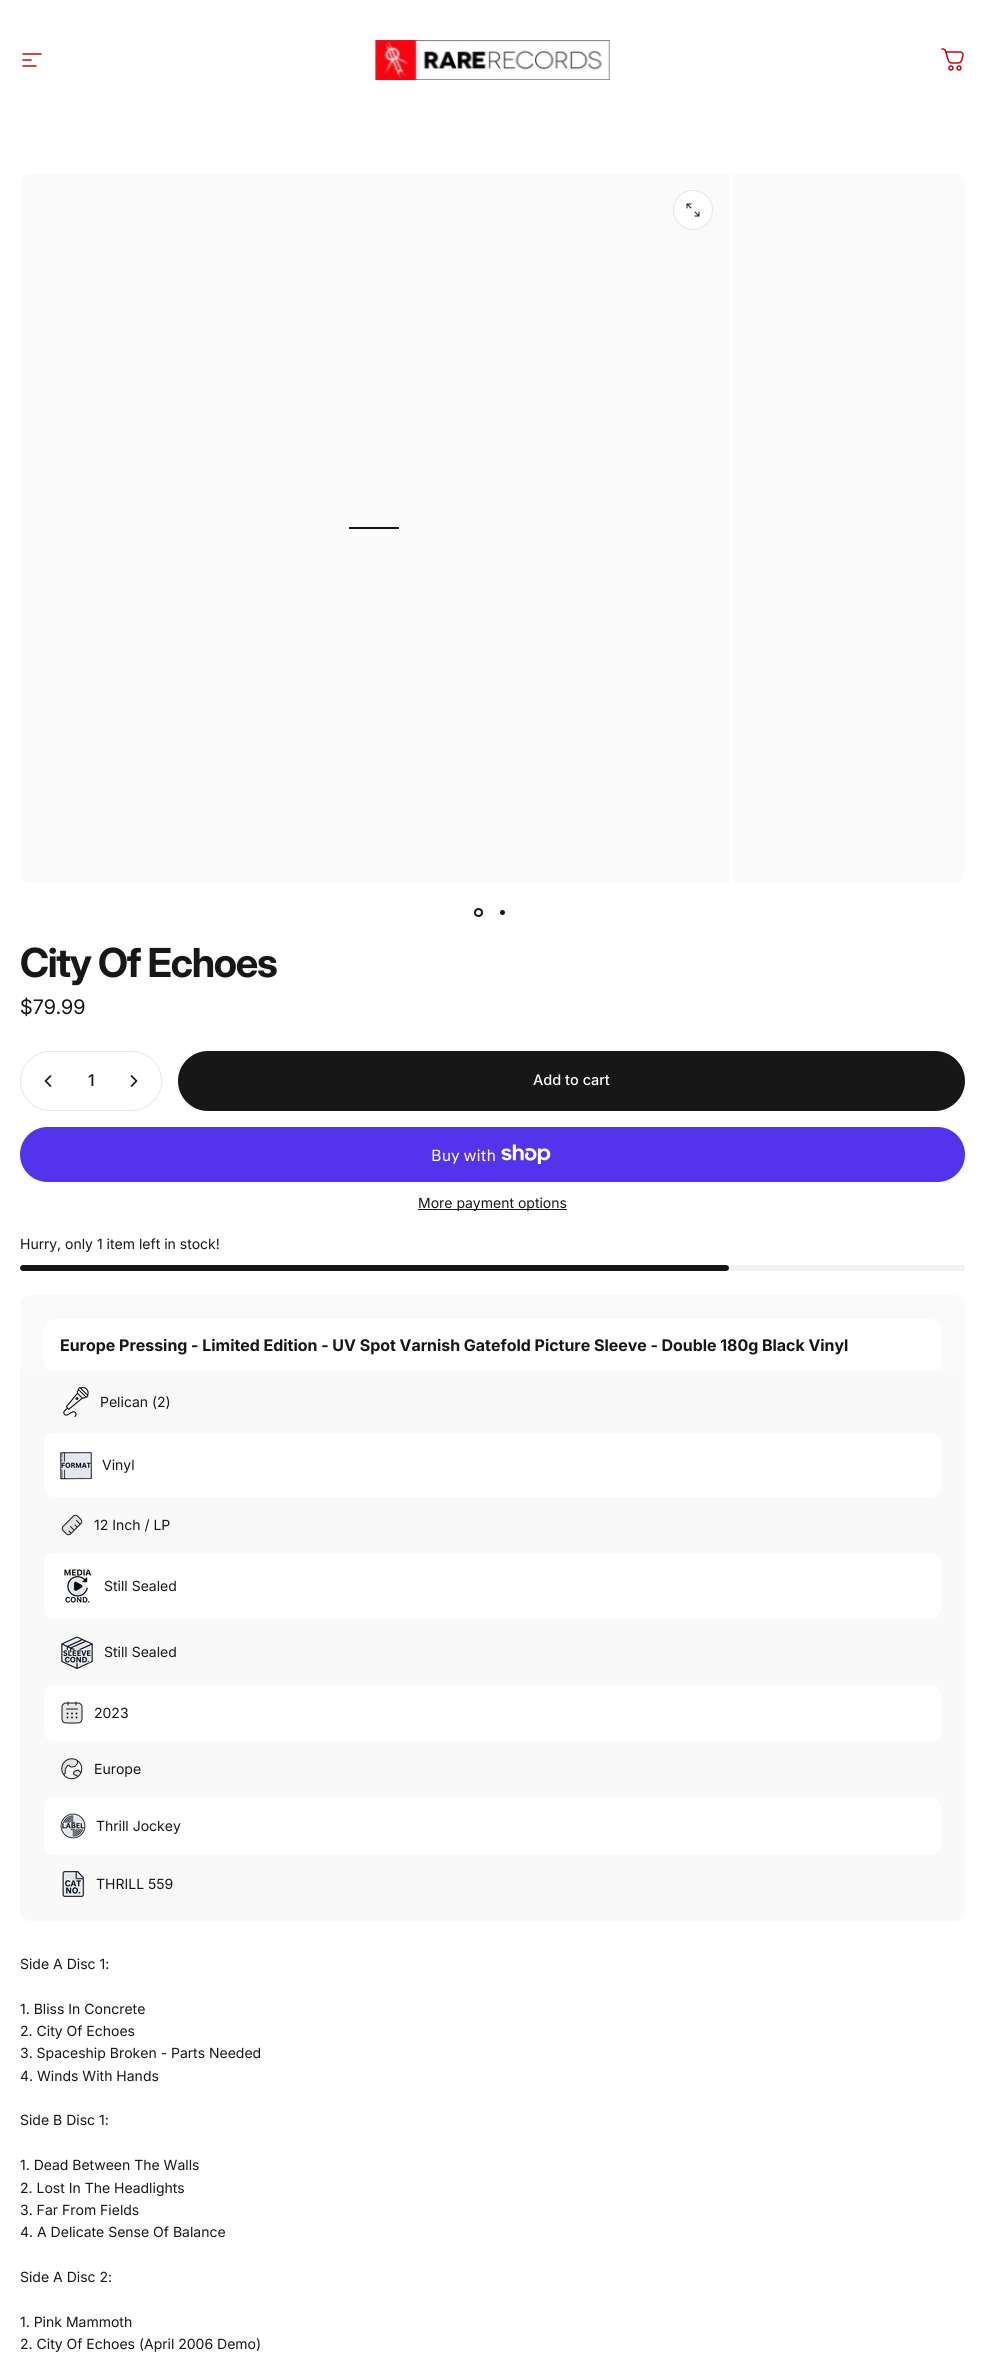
import math
import cairo


def write_spaced(ctx, x, y, s, letter, word):
	ctx.move_to(x, y)
	for ch in s:
		ctx.show_text(ch)
		ctx.rel_move_to(letter + word * (ch == ' '), 0)

def round_path(ctx, x, y, w, h, r):
	ctx.new_sub_path()
	for i, (u, v) in enumerate([(x + w - r, y + h - r), (x + r, y + h - r), (x + r, y + r), (x + w - r, y + r)]):
		ctx.arc(u, v, r, i * math.pi / 2, (i + 1) * math.pi / 2)
	ctx.close_path()

def paste(ctx, path, x, y, w, h):
	ctx.save()
	ctx.set_source_surface(cairo.ImageSurface.create_from_png(path), x, y)
	ctx.rectangle(x, y, w, h)
	ctx.fill()
	ctx.restore()

def draw(ctx):
	ctx.set_source_rgb(1, 1, 1)
	ctx.paint()
	ctx.new_path()
	ctx.move_to(23, 54)
	ctx.line_to(41, 54)
	ctx.move_to(23, 60)
	ctx.line_to(31, 60)
	ctx.move_to(23, 66)
	ctx.line_to(36, 66)
	ctx.set_source_rgb(0.8, 0, 0)
	ctx.set_line_width(1.5)
	ctx.set_line_cap(cairo.LINE_CAP_ROUND)
	ctx.stroke()
	paste(ctx, 'media/1.png', 375, 40, 235, 41)
	paste(ctx, 'media/2.png', 941, 48, 23, 23)
	ctx.set_source_rgb(0.98, 0.98, 0.98)
	ctx.new_path()
	ctx.move_to(30, 174)
	ctx.line_to(729, 174)
	ctx.line_to(729, 883)
	ctx.line_to(30, 883)
	ctx.curve_to(24.5, 883, 20, 878.5, 20, 873)
	ctx.line_to(20, 184)
	ctx.curve_to(20, 178.5, 24.5, 174, 30, 174)
	ctx.close_path()
	ctx.fill()
	ctx.set_source_rgb(0.996, 0.996, 0.996)
	ctx.arc(693, 210, 19.5, 0, 2 * math.pi)
	ctx.fill_preserve()
	ctx.set_source_rgb(0.902, 0.902, 0.902)
	ctx.set_line_width(1)
	ctx.set_line_cap(cairo.LINE_CAP_BUTT)
	ctx.stroke()
	paste(ctx, 'media/3.png', 686, 203, 14, 14)
	ctx.set_source_rgb(0.09, 0.09, 0.09)
	ctx.rectangle(349, 527, 50, 2)
	ctx.fill()
	ctx.set_source_rgb(0.98, 0.98, 0.98)
	ctx.new_path()
	ctx.move_to(733, 174)
	ctx.line_to(955, 174)
	ctx.curve_to(960.5, 174, 965, 178.5, 965, 184)
	ctx.line_to(965, 873)
	ctx.curve_to(965, 878.5, 960.5, 883, 955, 883)
	ctx.line_to(733, 883)
	ctx.close_path()
	ctx.fill()
	ctx.arc(478.5, 912.5, 3.5, 0, 2 * math.pi)
	ctx.set_source_rgb(0.09, 0.09, 0.09)
	ctx.set_line_width(2)
	ctx.stroke()
	ctx.arc(502.5, 912.5, 2.5, 0, 2 * math.pi)
	ctx.fill()
	ctx.select_font_face('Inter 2', cairo.FONT_SLANT_NORMAL, cairo.FONT_WEIGHT_BOLD)
	ctx.set_font_size(40)
	write_spaced(ctx, 20, 977, 'City Of Echoes', -1.25, 0)
	ctx.select_font_face('Inter')
	ctx.set_font_size(20)
	ctx.move_to(20, 1014)
	ctx.show_text('$79.99')
	round_path(ctx, 20.5, 1051.5, 141, 59, 29.5)
	ctx.set_source_rgb(0.91, 0.91, 0.91)
	ctx.set_line_width(1)
	ctx.stroke()
	ctx.new_path()
	ctx.move_to(50.5, 1076)
	ctx.line_to(45.5, 1081)
	ctx.line_to(50.5, 1086)
	ctx.set_source_rgb(0.09, 0.09, 0.09)
	ctx.set_line_width(1.7)
	ctx.set_line_cap(cairo.LINE_CAP_ROUND)
	ctx.set_line_join(cairo.LINE_JOIN_ROUND)
	ctx.stroke()
	ctx.select_font_face('Inter Medium')
	ctx.set_font_size(16)
	ctx.move_to(88, 1086)
	ctx.show_text('1')
	ctx.new_path()
	ctx.move_to(131.5, 1076)
	ctx.line_to(136.5, 1081)
	ctx.line_to(131.5, 1086)
	ctx.stroke()
	round_path(ctx, 179, 1052, 785, 58, 29)
	ctx.fill_preserve()
	ctx.set_line_width(2)
	ctx.set_line_cap(cairo.LINE_CAP_BUTT)
	ctx.set_line_join(cairo.LINE_JOIN_MITER)
	ctx.stroke()
	ctx.select_font_face('Inter 2 Medium')
	ctx.set_font_size(14.5)
	ctx.set_source_rgb(1, 1, 1)
	ctx.move_to(533, 1085)
	ctx.show_text('Add to cart')
	ctx.set_source_rgb(0.329, 0.2, 0.922)
	round_path(ctx, 20, 1127, 945, 55, 27.5)
	ctx.fill()
	ctx.select_font_face('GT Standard')
	ctx.set_font_size(16)
	ctx.set_source_rgb(1, 1, 1)
	ctx.move_to(431, 1161)
	ctx.show_text('Buy with')
	paste(ctx, 'media/4.png', 501, 1144, 50, 20)
	ctx.set_source_rgb(0.09, 0.09, 0.09)
	ctx.rectangle(418, 1209, 149, 1)
	ctx.fill()
	ctx.select_font_face('Inter 2')
	ctx.set_font_size(14)
	ctx.move_to(418, 1208)
	ctx.show_text('More payment options')
	ctx.move_to(20, 1249)
	ctx.show_text('Hurry, only 1 item left in stock!')
	ctx.set_source_rgb(0.945, 0.945, 0.945)
	round_path(ctx, 20, 1265, 945, 6, 3)
	ctx.fill()
	ctx.set_source_rgb(0.09, 0.09, 0.09)
	round_path(ctx, 20, 1265, 709, 6, 3)
	ctx.fill()
	ctx.set_source_rgb(0.98, 0.98, 0.98)
	ctx.new_path()
	ctx.move_to(30, 1295)
	ctx.line_to(955, 1295)
	ctx.curve_to(960.5, 1295, 965, 1299.5, 965, 1305)
	ctx.line_to(965, 1371)
	ctx.line_to(20, 1371)
	ctx.line_to(20, 1305)
	ctx.curve_to(20, 1299.5, 24.5, 1295, 30, 1295)
	ctx.close_path()
	ctx.fill()
	ctx.set_source_rgb(1, 1, 1)
	round_path(ctx, 44, 1319, 897, 52, 10)
	ctx.fill()
	ctx.select_font_face('Inter', cairo.FONT_SLANT_NORMAL, cairo.FONT_WEIGHT_BOLD)
	ctx.set_font_size(16)
	ctx.set_source_rgb(0.09, 0.09, 0.09)
	ctx.move_to(60, 1351)
	ctx.show_text('Europe Pressing - Limited Edition - UV Spot Varnish Gatefold Picture Sleeve - Double 180g Black Vinyl')
	ctx.set_source_rgb(0.976, 0.976, 0.976)
	ctx.rectangle(20, 1371, 945, 484)
	ctx.fill()
	paste(ctx, 'media/5.png', 63, 1387, 26, 30)
	ctx.select_font_face('Inter 2')
	ctx.set_font_size(14)
	ctx.set_source_rgb(0.09, 0.09, 0.09)
	ctx.move_to(100, 1407)
	ctx.show_text('Pelican (2)')
	ctx.set_source_rgb(1, 1, 1)
	round_path(ctx, 44, 1433, 897, 64, 10)
	ctx.fill()
	paste(ctx, 'media/6.png', 60, 1452, 32, 28)
	ctx.set_source_rgb(0.09, 0.09, 0.09)
	ctx.move_to(102, 1470)
	ctx.show_text('Vinyl')
	paste(ctx, 'media/7.png', 61, 1514, 22, 22)
	ctx.move_to(94, 1530)
	ctx.show_text('12 Inch / LP')
	ctx.set_source_rgb(1, 1, 1)
	round_path(ctx, 44, 1553, 897, 66, 10)
	ctx.fill()
	paste(ctx, 'media/8.png', 64, 1569, 28, 34)
	ctx.set_source_rgb(0.09, 0.09, 0.09)
	ctx.move_to(104, 1591)
	ctx.show_text('Still Sealed')
	paste(ctx, 'media/9.png', 61, 1636, 32, 33)
	ctx.move_to(104, 1657)
	ctx.show_text('Still Sealed')
	ctx.set_source_rgb(1, 1, 1)
	round_path(ctx, 44, 1685, 897, 56, 10)
	ctx.fill()
	paste(ctx, 'media/10.png', 61, 1701, 22, 23)
	ctx.set_source_rgb(0.09, 0.09, 0.09)
	ctx.move_to(94, 1718)
	ctx.show_text('2023')
	paste(ctx, 'media/11.png', 61, 1758, 22, 22)
	ctx.move_to(94, 1774)
	ctx.show_text('Europe')
	ctx.set_source_rgb(1, 1, 1)
	round_path(ctx, 44, 1797, 897, 58, 10)
	ctx.fill()
	paste(ctx, 'media/12.png', 60, 1813, 26, 26)
	ctx.set_source_rgb(0.09, 0.09, 0.09)
	ctx.move_to(96, 1831)
	ctx.show_text('Thrill Jockey')
	ctx.set_source_rgb(0.976, 0.976, 0.976)
	ctx.new_path()
	ctx.move_to(20, 1855)
	ctx.line_to(965, 1855)
	ctx.line_to(965, 1911)
	ctx.curve_to(965, 1916.5, 960.5, 1921, 955, 1921)
	ctx.line_to(30, 1921)
	ctx.curve_to(24.5, 1921, 20, 1916.5, 20, 1911)
	ctx.close_path()
	ctx.fill()
	paste(ctx, 'media/13.png', 62, 1871, 23, 26)
	ctx.set_source_rgb(0.09, 0.09, 0.09)
	for x, y, s in [
		(96, 1889, 'THRILL 559'),
		(20, 1969, 'Side A Disc 1:'),
		(20, 2014, '1. Bliss In Concrete'),
		(20, 2036, '2. City Of Echoes'),
		(20, 2058, '3. Spaceship Broken - Parts Needed'),
		(20, 2081, '4. Winds With Hands'),
		(20, 2125, 'Side B Disc 1:'),
		(20, 2170, '1. Dead Between The Walls'),
		(20, 2193, '2. Lost In The Headlights'),
		(20, 2215, '3. Far From Fields'),
		(20, 2237, '4. A Delicate Sense Of Balance'),
		(20, 2282, 'Side A Disc 2:'),
		(20, 2327, '1. Pink Mammoth'),
		(20, 2349, '2. City Of Echoes (April 2006 Demo)'),
	]:
		ctx.move_to(x, y)
		ctx.show_text(s)


surface = cairo.ImageSurface(cairo.FORMAT_RGB24, 985, 2353)
ctx = cairo.Context(surface)
options = cairo.FontOptions()
options.set_hint_metrics(cairo.HINT_METRICS_OFF)
options.set_hint_style(cairo.HINT_STYLE_NONE)
ctx.set_font_options(options)
ctx.set_miter_limit(4)
draw(ctx)
surface.write_to_png('image.png')
